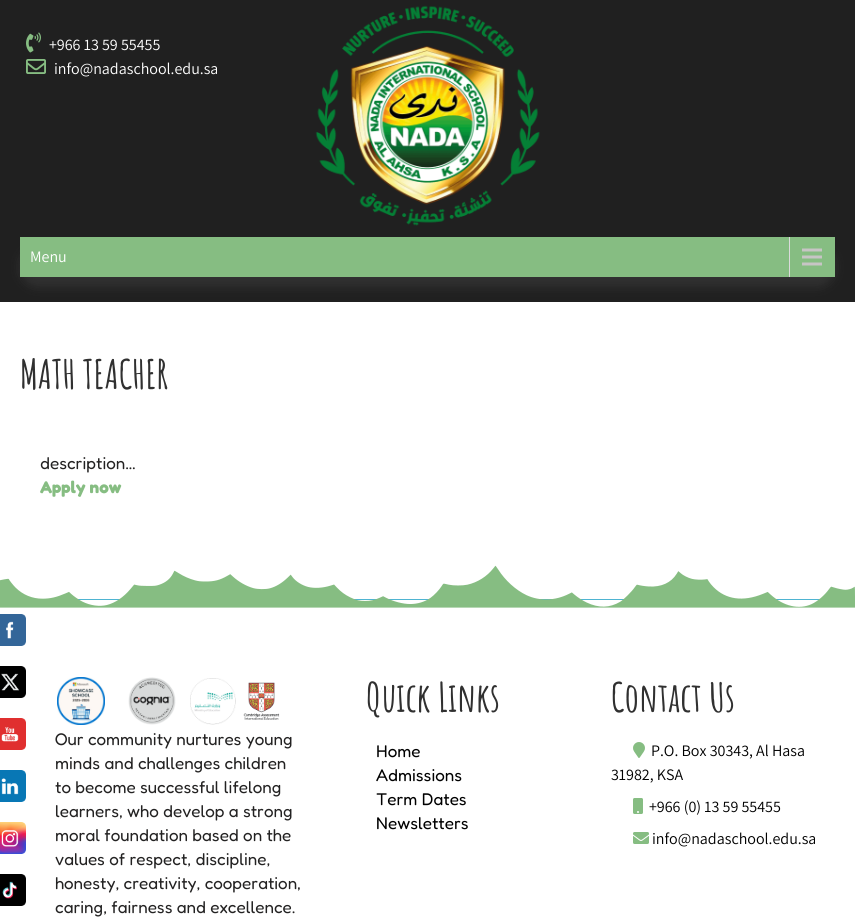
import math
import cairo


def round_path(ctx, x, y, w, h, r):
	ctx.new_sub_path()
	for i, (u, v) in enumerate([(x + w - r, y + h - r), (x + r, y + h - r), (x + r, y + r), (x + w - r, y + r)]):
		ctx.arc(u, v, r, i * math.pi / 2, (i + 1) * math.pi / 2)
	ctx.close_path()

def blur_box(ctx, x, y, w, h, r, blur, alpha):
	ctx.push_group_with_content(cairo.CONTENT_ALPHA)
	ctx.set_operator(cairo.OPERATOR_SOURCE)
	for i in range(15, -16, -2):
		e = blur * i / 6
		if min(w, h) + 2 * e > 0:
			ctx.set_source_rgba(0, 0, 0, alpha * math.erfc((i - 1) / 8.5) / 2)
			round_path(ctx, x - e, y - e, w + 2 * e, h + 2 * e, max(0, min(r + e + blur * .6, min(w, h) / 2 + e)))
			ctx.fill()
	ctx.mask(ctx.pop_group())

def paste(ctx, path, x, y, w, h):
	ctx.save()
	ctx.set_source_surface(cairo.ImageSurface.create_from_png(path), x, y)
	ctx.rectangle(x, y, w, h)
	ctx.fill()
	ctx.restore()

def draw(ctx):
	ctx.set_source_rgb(1, 1, 1)
	ctx.paint()
	paste(ctx, 'media/1.png', 0, 614, 26, 32)
	paste(ctx, 'media/2.png', 0, 666, 26, 32)
	paste(ctx, 'media/3.png', 0, 718, 26, 32)
	paste(ctx, 'media/4.png', 0, 770, 26, 32)
	paste(ctx, 'media/5.png', 0, 822, 26, 32)
	paste(ctx, 'media/6.png', 0, 874, 26, 32)
	ctx.set_source_rgb(0.125, 0.125, 0.125)
	ctx.rectangle(0, 0, 855, 302)
	ctx.fill()
	paste(ctx, 'media/7.png', 26, 32, 15, 21)
	ctx.select_font_face('Assistant')
	ctx.set_font_size(16)
	ctx.set_source_rgb(1, 1, 1)
	ctx.move_to(49, 50)
	ctx.show_text('+966 13 59 55455')
	paste(ctx, 'media/8.png', 26, 59, 20, 15)
	ctx.move_to(54, 74)
	ctx.show_text('info@nadaschool.edu.sa')
	paste(ctx, 'media/9.png', 315, 5, 225, 221)
	ctx.set_source_rgb(0.345, 0.345, 0.345)
	blur_box(ctx, 20, 247, 815, 40, 20, 5, 0.3)
	ctx.set_source_rgb(0.525, 0.741, 0.51)
	ctx.rectangle(20, 237, 815, 40)
	ctx.fill()
	paste(ctx, 'media/10.png', 789, 237, 33, 40)
	ctx.set_source_rgb(1, 1, 1)
	ctx.move_to(30, 262)
	ctx.show_text('Menu')
	ctx.select_font_face('Amatic SC', cairo.FONT_SLANT_NORMAL, cairo.FONT_WEIGHT_BOLD)
	ctx.set_font_size(40)
	ctx.set_source_rgb(0.188, 0.188, 0.188)
	ctx.move_to(20, 389)
	ctx.show_text('MATH TEACHER')
	ctx.select_font_face('Fredoka')
	ctx.set_font_size(17)
	ctx.set_source_rgb(0.137, 0.133, 0.133)
	ctx.move_to(40, 469)
	ctx.show_text('description…')
	ctx.select_font_face('Fredoka', cairo.FONT_SLANT_NORMAL, cairo.FONT_WEIGHT_BOLD)
	ctx.set_source_rgb(0.525, 0.741, 0.51)
	ctx.move_to(40, 493)
	ctx.show_text('Apply now')
	ctx.set_source_rgb(0.306, 0.706, 0.824)
	ctx.rectangle(78, 599, 742, 1)
	ctx.fill()
	paste(ctx, 'media/11.png', 0, 565, 855, 43)
	paste(ctx, 'media/12.png', 57, 677, 48, 48)
	paste(ctx, 'media/13.png', 128, 677, 48, 48)
	paste(ctx, 'media/14.png', 190, 678, 46, 47)
	paste(ctx, 'media/15.png', 243, 682, 37, 38)
	ctx.select_font_face('Fredoka')
	ctx.set_source_rgb(0.137, 0.133, 0.133)
	for x, y, s in [
		(55, 745, 'Our community nurtures young'),
		(55, 769, 'minds and challenges children'),
		(55, 793, 'to become successful lifelong'),
		(55, 817, 'learners, who develop a strong'),
		(55, 841, 'moral foundation based on the'),
		(55, 865, 'values of respect, discipline,'),
		(55, 889, 'honesty, creativity, cooperation,'),
		(55, 913, 'caring, fairness and excellence.'),
	]:
		ctx.move_to(x, y)
		ctx.show_text(s)
	ctx.select_font_face('Amatic SC', cairo.FONT_SLANT_NORMAL, cairo.FONT_WEIGHT_BOLD)
	ctx.set_font_size(40)
	ctx.set_source_rgb(0.188, 0.188, 0.188)
	ctx.move_to(366, 712)
	ctx.show_text('Quick Links')
	ctx.select_font_face('Fredoka')
	ctx.set_font_size(17)
	ctx.set_source_rgb(0, 0, 0)
	for x, y, s in [
		(376, 757, 'Home'),
		(376, 781, 'Admissions'),
		(376, 805, 'Term Dates'),
		(376, 829, 'Newsletters'),
	]:
		ctx.move_to(x, y)
		ctx.show_text(s)
	ctx.select_font_face('Amatic SC', cairo.FONT_SLANT_NORMAL, cairo.FONT_WEIGHT_BOLD)
	ctx.set_font_size(40)
	ctx.set_source_rgb(0.188, 0.188, 0.188)
	ctx.move_to(611, 712)
	ctx.show_text('Contact Us')
	paste(ctx, 'media/16.png', 633, 742, 12, 16)
	ctx.select_font_face('Assistant')
	ctx.set_font_size(16)
	ctx.set_source_rgb(0, 0, 0)
	ctx.move_to(651, 756)
	ctx.show_text('P.O. Box 30343, Al Hasa')
	ctx.move_to(611, 780)
	ctx.show_text('31982, KSA')
	paste(ctx, 'media/17.png', 633, 798, 10, 16)
	ctx.move_to(649, 812)
	ctx.show_text('+966 (0) 13 59 55455')
	paste(ctx, 'media/18.png', 633, 832, 16, 12)
	ctx.move_to(652, 844)
	ctx.show_text('info@nadaschool.edu.sa')


surface = cairo.ImageSurface(cairo.FORMAT_RGB24, 855, 922)
ctx = cairo.Context(surface)
options = cairo.FontOptions()
options.set_hint_metrics(cairo.HINT_METRICS_OFF)
options.set_hint_style(cairo.HINT_STYLE_NONE)
ctx.set_font_options(options)
ctx.set_miter_limit(4)
draw(ctx)
surface.write_to_png('image.png')
